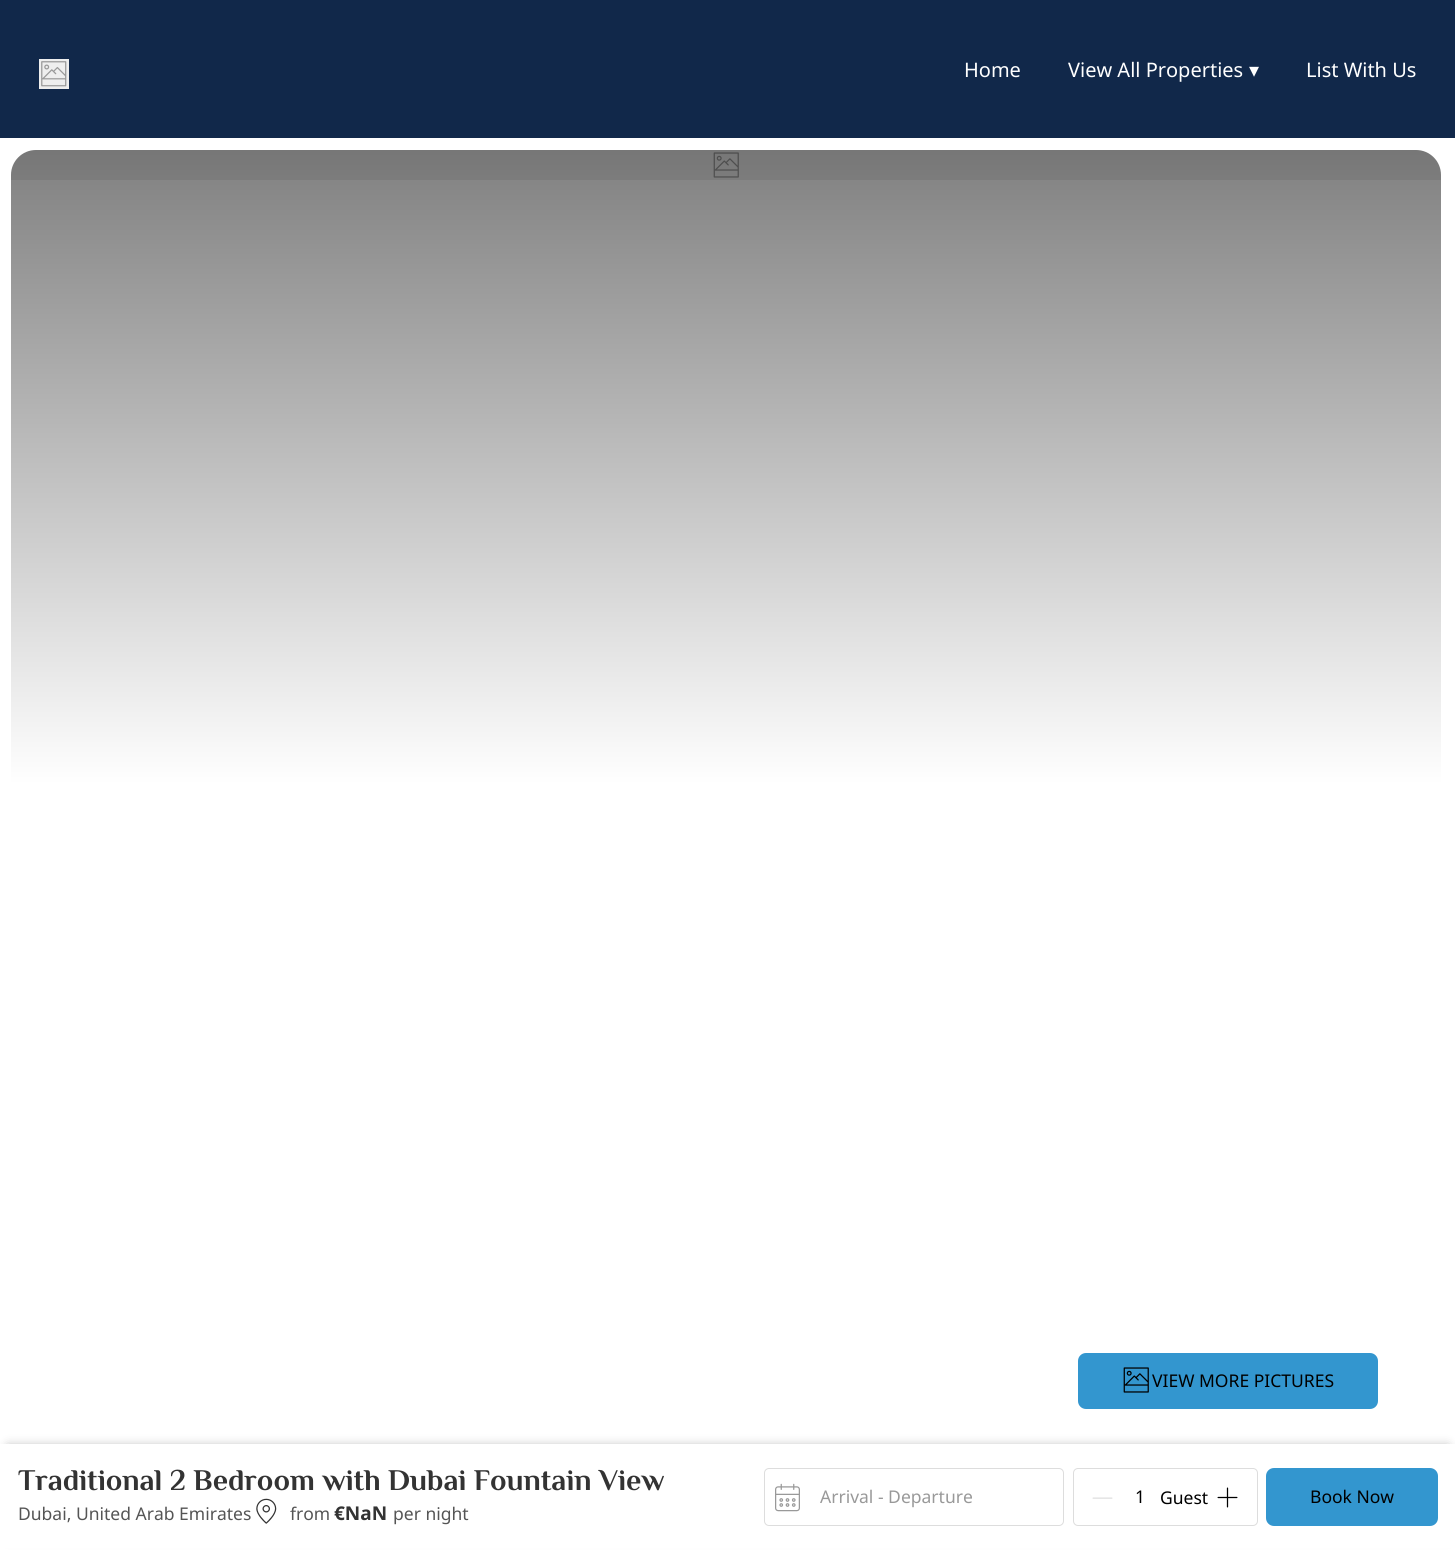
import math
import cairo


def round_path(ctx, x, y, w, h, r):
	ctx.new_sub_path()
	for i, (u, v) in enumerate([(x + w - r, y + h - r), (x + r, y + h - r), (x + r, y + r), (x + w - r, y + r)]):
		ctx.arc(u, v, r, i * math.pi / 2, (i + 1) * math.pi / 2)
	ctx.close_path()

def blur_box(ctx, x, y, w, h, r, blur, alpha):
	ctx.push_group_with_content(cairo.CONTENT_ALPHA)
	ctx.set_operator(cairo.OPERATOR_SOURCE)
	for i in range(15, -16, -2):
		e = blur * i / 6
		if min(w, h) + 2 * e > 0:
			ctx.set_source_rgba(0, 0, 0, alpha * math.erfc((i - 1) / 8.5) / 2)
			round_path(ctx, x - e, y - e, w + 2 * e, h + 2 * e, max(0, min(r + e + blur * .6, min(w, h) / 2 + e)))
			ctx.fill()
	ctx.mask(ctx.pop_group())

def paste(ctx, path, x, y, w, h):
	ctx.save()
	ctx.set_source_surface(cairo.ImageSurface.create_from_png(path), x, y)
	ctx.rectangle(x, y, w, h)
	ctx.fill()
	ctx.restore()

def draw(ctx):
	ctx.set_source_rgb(1, 1, 1)
	ctx.paint()
	ctx.set_source_rgb(0.067, 0.157, 0.29)
	ctx.rectangle(0, 0, 1455, 138)
	ctx.fill()
	ctx.set_source_rgb(0.933, 0.933, 0.933)
	ctx.rectangle(39, 59, 30, 30)
	ctx.fill()
	paste(ctx, 'media/1.png', 41, 61, 26, 26)
	ctx.select_font_face('Noto Sans')
	ctx.set_font_size(20)
	ctx.set_source_rgb(1, 1, 1)
	ctx.move_to(964, 77)
	ctx.show_text('Home')
	ctx.move_to(1068, 77)
	ctx.show_text('View All Properties')
	ctx.select_font_face('DejaVu Sans')
	ctx.move_to(1249, 77)
	ctx.show_text('▾')
	ctx.select_font_face('Noto Sans')
	ctx.move_to(1306, 77)
	ctx.show_text('List With Us')
	ctx.set_source_rgb(0.933, 0.933, 0.933)
	ctx.new_path()
	ctx.move_to(36, 150)
	ctx.line_to(1416, 150)
	ctx.curve_to(1430, 150, 1441, 161, 1441, 175)
	ctx.line_to(1441, 180)
	ctx.line_to(11, 180)
	ctx.line_to(11, 175)
	ctx.curve_to(11, 161, 22, 150, 36, 150)
	ctx.close_path()
	ctx.fill()
	paste(ctx, 'media/2.png', 713, 152, 26, 26)
	gradient = cairo.LinearGradient(726, 1444, 726, 150)
	gradient.add_color_stop_rgba(0.51, 0, 0, 0, 0)
	gradient.add_color_stop_rgba(1, 0, 0, 0, 0.5)
	ctx.set_source(gradient)
	round_path(ctx, 11, 150, 1430, 1294, 25)
	ctx.fill()
	ctx.set_source_rgb(0.2, 0.588, 0.812)
	round_path(ctx, 1078, 1353, 300, 56, 8)
	ctx.fill()
	paste(ctx, 'media/3.png', 1123, 1367, 26, 26)
	ctx.set_font_size(17.5)
	ctx.set_source_rgb(0, 0, 0)
	ctx.move_to(1152, 1387)
	ctx.show_text('VIEW MORE PICTURES')
	ctx.set_source_rgb(0, 0, 0)
	blur_box(ctx, 8, 1446, 1440, 92, 0, 5.5, 0.29)
	ctx.set_source_rgb(1, 1, 1)
	ctx.rectangle(0, 1444, 1455, 104)
	ctx.fill()
	ctx.select_font_face('Philosopher', cairo.FONT_SLANT_NORMAL, cairo.FONT_WEIGHT_BOLD)
	ctx.set_font_size(30)
	ctx.set_source_rgb(0.2, 0.2, 0.2)
	ctx.move_to(18, 1490)
	ctx.show_text('Traditional 2 Bedroom with Dubai Fountain View')
	ctx.select_font_face('Noto Sans')
	ctx.set_font_size(17.5)
	ctx.set_source_rgb(0.333, 0.333, 0.333)
	ctx.move_to(18, 1520)
	ctx.show_text('Dubai, United Arab Emirates')
	paste(ctx, 'media/4.png', 256, 1498, 21, 26)
	ctx.move_to(290, 1520)
	ctx.show_text('from')
	ctx.select_font_face('Noto Sans', cairo.FONT_SLANT_NORMAL, cairo.FONT_WEIGHT_BOLD)
	ctx.set_font_size(19)
	ctx.set_source_rgb(0.2, 0.2, 0.2)
	ctx.move_to(334, 1520)
	ctx.show_text('€NaN')
	ctx.select_font_face('Noto Sans')
	ctx.set_font_size(17.5)
	ctx.set_source_rgb(0.333, 0.333, 0.333)
	ctx.move_to(393, 1520)
	ctx.show_text('per night')
	round_path(ctx, 764.5, 1468.5, 299, 57, 4.5)
	ctx.set_source_rgb(0.867, 0.867, 0.867)
	ctx.set_line_width(1)
	ctx.stroke()
	paste(ctx, 'media/5.png', 775, 1483, 25, 29)
	ctx.set_source_rgb(0.6, 0.6, 0.6)
	ctx.move_to(820, 1503)
	ctx.show_text('Arrival - Departure')
	round_path(ctx, 1073.5, 1468.5, 184, 57, 4.5)
	ctx.set_source_rgb(0.867, 0.867, 0.867)
	ctx.stroke()
	paste(ctx, 'media/6.png', 1092, 1497, 21, 2)
	ctx.set_source_rgb(0, 0, 0)
	ctx.move_to(1135, 1503)
	ctx.show_text('1')
	ctx.move_to(1160, 1504)
	ctx.show_text('Guest')
	paste(ctx, 'media/7.png', 1217, 1487, 21, 21)
	ctx.set_source_rgb(0.2, 0.588, 0.812)
	round_path(ctx, 1266, 1468, 172, 58, 8)
	ctx.fill()
	ctx.set_source_rgb(0, 0, 0)
	ctx.move_to(1310, 1503)
	ctx.show_text('Book Now')


surface = cairo.ImageSurface(cairo.FORMAT_RGB24, 1455, 1550)
ctx = cairo.Context(surface)
options = cairo.FontOptions()
options.set_hint_metrics(cairo.HINT_METRICS_OFF)
options.set_hint_style(cairo.HINT_STYLE_NONE)
ctx.set_font_options(options)
ctx.set_miter_limit(4)
draw(ctx)
surface.write_to_png('image.png')
